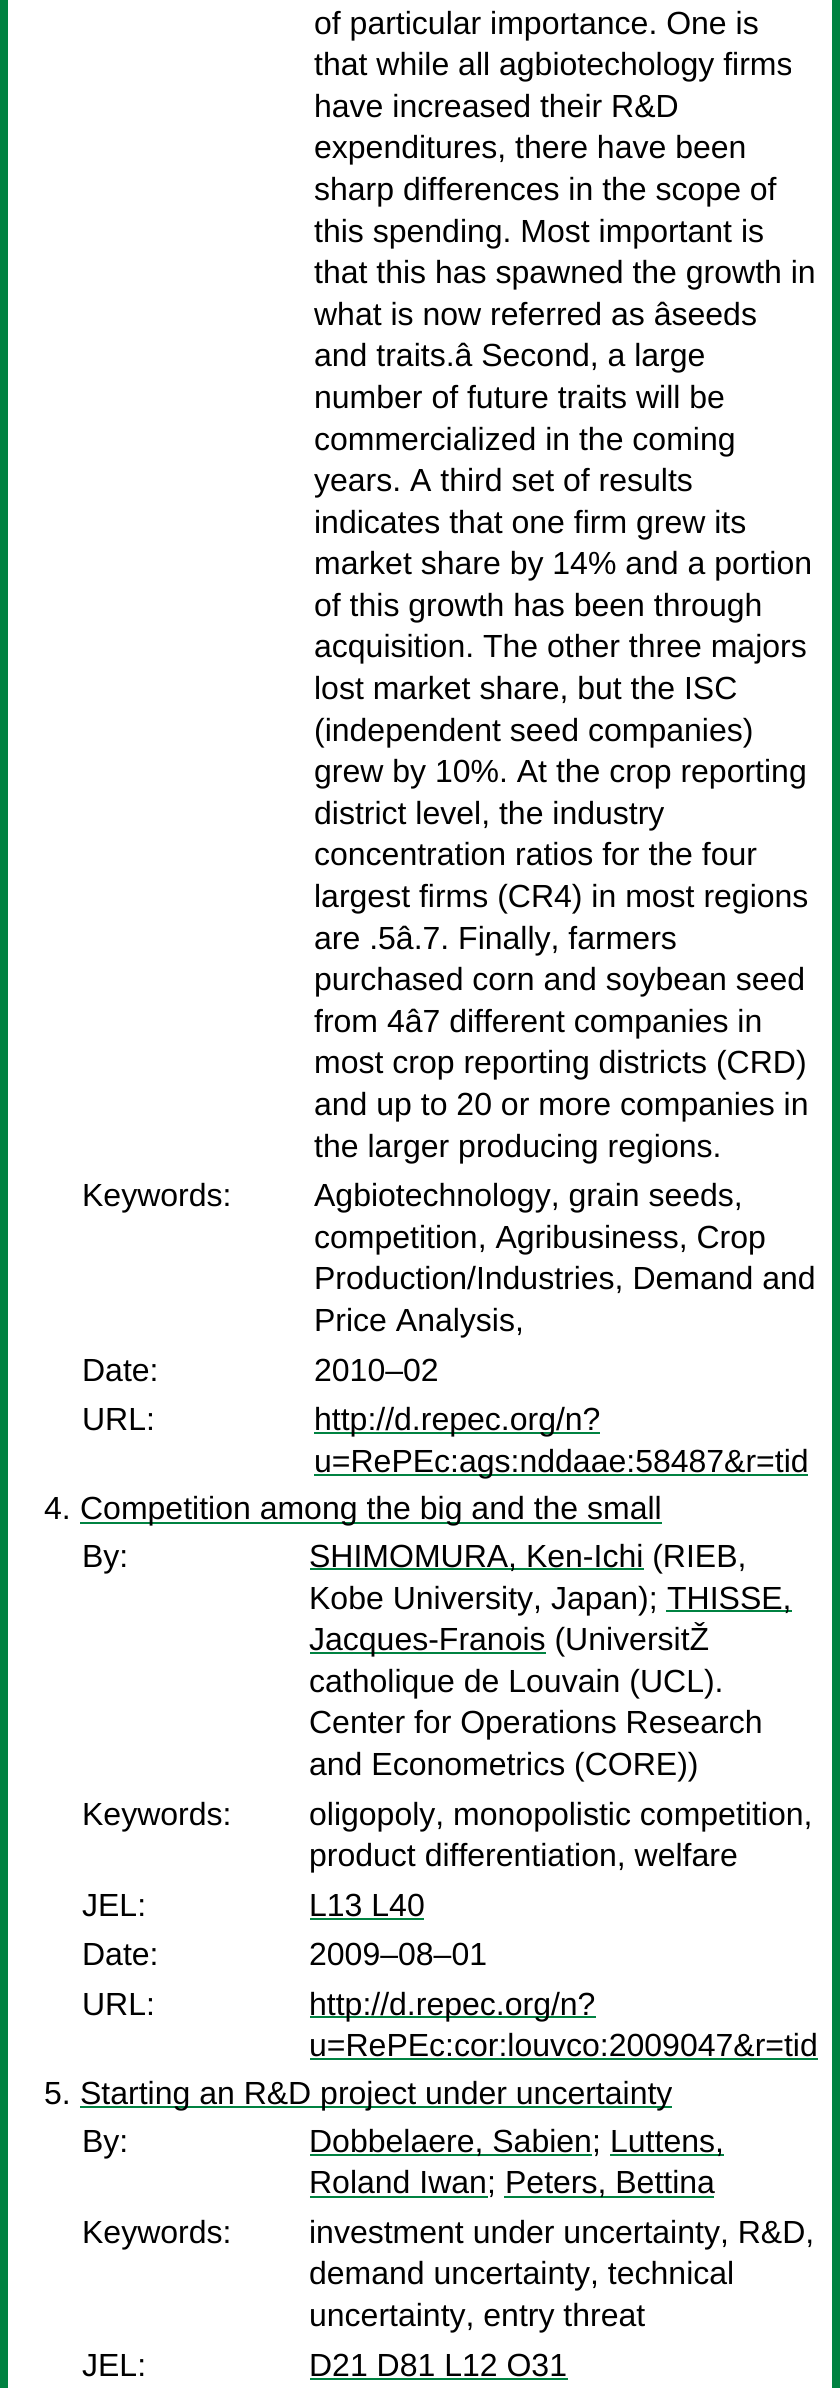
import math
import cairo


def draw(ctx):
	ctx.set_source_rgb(1, 1, 1)
	ctx.paint()
	ctx.rectangle(4, -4, 832, 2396)
	ctx.set_source_rgb(0, 0.51, 0.255)
	ctx.set_line_width(8)
	ctx.stroke()
	ctx.select_font_face('Liberation Sans')
	ctx.set_font_size(32)
	ctx.set_source_rgb(0, 0, 0)
	for x, y, s in [
		(314, 34, 'of particular importance. One is'),
		(314, 75, 'that while all agbiotechology firms'),
		(314, 117, 'have increased their R&D'),
		(314, 158, 'expenditures, there have been'),
		(314, 200, 'sharp differences in the scope of'),
		(314, 242, 'this spending. Most important is'),
		(314, 283, 'that this has spawned the growth in'),
		(314, 325, 'what is now referred as âseeds'),
		(314, 366, 'and traits.â Second, a large'),
		(314, 408, 'number of future traits will be'),
		(314, 450, 'commercialized in the coming'),
		(314, 491, 'years. A third set of results'),
		(314, 533, 'indicates that one firm grew its'),
		(314, 574, 'market share by 14% and a portion'),
		(314, 616, 'of this growth has been through'),
		(314, 657, 'acquisition. The other three majors'),
		(314, 699, 'lost market share, but the ISC'),
		(314, 741, '(independent seed companies)'),
		(314, 782, 'grew by 10%. At the crop reporting'),
		(314, 824, 'district level, the industry'),
		(314, 865, 'concentration ratios for the four'),
		(314, 907, 'largest firms (CR4) in most regions'),
		(314, 949, 'are .5â.7. Finally, farmers'),
		(314, 990, 'purchased corn and soybean seed'),
		(314, 1032, 'from 4â7 different companies in'),
		(314, 1073, 'most crop reporting districts (CRD)'),
		(314, 1115, 'and up to 20 or more companies in'),
		(314, 1157, 'the larger producing regions.'),
		(82, 1206, 'Keywords:'),
		(314, 1206, 'Agbiotechnology, grain seeds,'),
		(314, 1248, 'competition, Agribusiness, Crop'),
		(314, 1289, 'Production/Industries, Demand and'),
		(314, 1331, 'Price Analysis,'),
		(82, 1381, 'Date:'),
		(314, 1381, '2010–02'),
		(82, 1430, 'URL:'),
	]:
		ctx.move_to(x, y)
		ctx.show_text(s)
	ctx.set_source_rgb(0, 0.51, 0.255)
	ctx.rectangle(314, 1432, 286, 2)
	ctx.fill()
	ctx.set_source_rgb(0, 0, 0)
	ctx.move_to(314, 1430)
	ctx.show_text('http://d.repec.org/n?')
	ctx.set_source_rgb(0, 0.51, 0.255)
	ctx.rectangle(314, 1474, 494, 2)
	ctx.fill()
	ctx.set_source_rgb(0, 0, 0)
	ctx.move_to(314, 1472)
	ctx.show_text('u=RePEc:ags:nddaae:58487&r=tid')
	ctx.move_to(44, 1519)
	ctx.show_text('4.')
	ctx.set_source_rgb(0, 0.51, 0.255)
	ctx.rectangle(80, 1522, 582, 2)
	ctx.fill()
	ctx.set_source_rgb(0, 0, 0)
	ctx.move_to(80, 1519)
	ctx.show_text('Competition among the big and the small')
	ctx.move_to(82, 1567)
	ctx.show_text('By:')
	ctx.set_source_rgb(0, 0.51, 0.255)
	ctx.rectangle(310, 1568, 334, 2)
	ctx.fill()
	ctx.set_source_rgb(0, 0, 0)
	ctx.move_to(309, 1567)
	ctx.show_text('SHIMOMURA, Ken-Ichi (RIEB,')
	ctx.move_to(309, 1609)
	ctx.show_text('Kobe University, Japan);')
	ctx.set_source_rgb(0, 0.51, 0.255)
	ctx.rectangle(666, 1610, 126, 2)
	ctx.fill()
	ctx.set_source_rgb(0, 0, 0)
	ctx.move_to(667, 1609)
	ctx.show_text('THISSE,')
	ctx.set_source_rgb(0, 0.51, 0.255)
	ctx.rectangle(310, 1652, 236, 2)
	ctx.fill()
	ctx.set_source_rgb(0, 0, 0)
	for x, y, s in [
		(309, 1650, 'Jacques-Franois (UniversitŽ'),
		(309, 1692, 'catholique de Louvain (UCL).'),
		(309, 1733, 'Center for Operations Research'),
		(309, 1775, 'and Econometrics (CORE))'),
		(82, 1825, 'Keywords:'),
		(309, 1825, 'oligopoly, monopolistic competition,'),
		(309, 1866, 'product differentiation, welfare'),
		(82, 1916, 'JEL:'),
		(309, 1916, 'L13 L40'),
	]:
		ctx.move_to(x, y)
		ctx.show_text(s)
	ctx.set_source_rgb(0, 0.51, 0.255)
	ctx.rectangle(310, 1918, 114, 2)
	ctx.fill()
	ctx.set_source_rgb(0, 0, 0)
	for x, y, s in [
		(82, 1965, 'Date:'),
		(309, 1965, '2009–08–01'),
		(82, 2015, 'URL:'),
	]:
		ctx.move_to(x, y)
		ctx.show_text(s)
	ctx.set_source_rgb(0, 0.51, 0.255)
	ctx.rectangle(310, 2016, 286, 2)
	ctx.fill()
	ctx.set_source_rgb(0, 0, 0)
	ctx.move_to(309, 2015)
	ctx.show_text('http://d.repec.org/n?')
	ctx.move_to(309, 2056)
	ctx.show_text('u=RePEc:cor:louvco:2009047&r=tid')
	ctx.set_source_rgb(0, 0.51, 0.255)
	ctx.rectangle(310, 2058, 508, 2)
	ctx.fill()
	ctx.set_source_rgb(0, 0, 0)
	ctx.move_to(44, 2104)
	ctx.show_text('5.')
	ctx.set_source_rgb(0, 0.51, 0.255)
	ctx.rectangle(80, 2106, 592, 2)
	ctx.fill()
	ctx.set_source_rgb(0, 0, 0)
	ctx.move_to(80, 2104)
	ctx.show_text('Starting an R&D project under uncertainty')
	ctx.move_to(82, 2152)
	ctx.show_text('By:')
	ctx.set_source_rgb(0, 0.51, 0.255)
	ctx.rectangle(310, 2154, 282, 2)
	ctx.fill()
	ctx.set_source_rgb(0, 0, 0)
	ctx.move_to(309, 2152)
	ctx.show_text('Dobbelaere, Sabien;')
	ctx.set_source_rgb(0, 0.51, 0.255)
	ctx.rectangle(610, 2154, 114, 2)
	ctx.fill()
	ctx.set_source_rgb(0, 0, 0)
	ctx.move_to(610, 2152)
	ctx.show_text('Luttens,')
	ctx.set_source_rgb(0, 0.51, 0.255)
	ctx.rectangle(310, 2196, 178, 2)
	ctx.fill()
	ctx.set_source_rgb(0, 0, 0)
	ctx.move_to(309, 2193)
	ctx.show_text('Roland Iwan;')
	ctx.set_source_rgb(0, 0.51, 0.255)
	ctx.rectangle(504, 2196, 210, 2)
	ctx.fill()
	ctx.set_source_rgb(0, 0, 0)
	for x, y, s in [
		(505, 2193, 'Peters, Bettina'),
		(82, 2243, 'Keywords:'),
		(309, 2243, 'investment under uncertainty, R&D,'),
		(309, 2284, 'demand uncertainty, technical'),
		(309, 2326, 'uncertainty, entry threat'),
		(82, 2376, 'JEL:'),
		(309, 2376, 'D21 D81 L12 O31'),
	]:
		ctx.move_to(x, y)
		ctx.show_text(s)
	ctx.set_source_rgb(0, 0.51, 0.255)
	ctx.rectangle(310, 2378, 258, 2)
	ctx.fill()


surface = cairo.ImageSurface(cairo.FORMAT_RGB24, 840, 2388)
ctx = cairo.Context(surface)
options = cairo.FontOptions()
options.set_hint_metrics(cairo.HINT_METRICS_OFF)
options.set_hint_style(cairo.HINT_STYLE_NONE)
ctx.set_font_options(options)
ctx.set_miter_limit(4)
draw(ctx)
surface.write_to_png('image.png')
